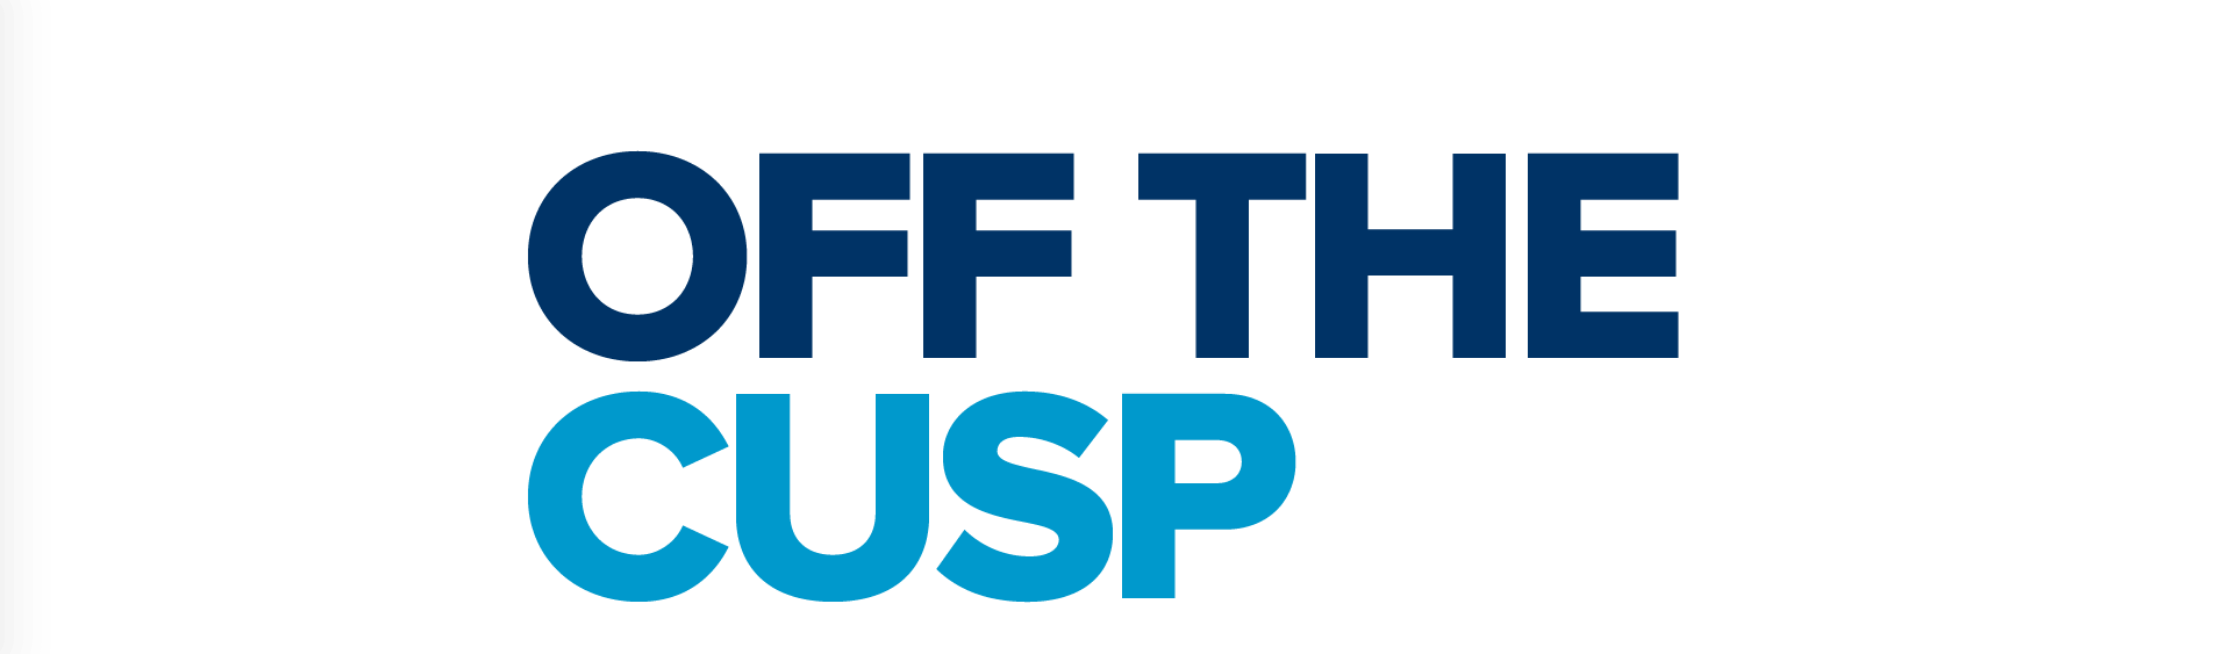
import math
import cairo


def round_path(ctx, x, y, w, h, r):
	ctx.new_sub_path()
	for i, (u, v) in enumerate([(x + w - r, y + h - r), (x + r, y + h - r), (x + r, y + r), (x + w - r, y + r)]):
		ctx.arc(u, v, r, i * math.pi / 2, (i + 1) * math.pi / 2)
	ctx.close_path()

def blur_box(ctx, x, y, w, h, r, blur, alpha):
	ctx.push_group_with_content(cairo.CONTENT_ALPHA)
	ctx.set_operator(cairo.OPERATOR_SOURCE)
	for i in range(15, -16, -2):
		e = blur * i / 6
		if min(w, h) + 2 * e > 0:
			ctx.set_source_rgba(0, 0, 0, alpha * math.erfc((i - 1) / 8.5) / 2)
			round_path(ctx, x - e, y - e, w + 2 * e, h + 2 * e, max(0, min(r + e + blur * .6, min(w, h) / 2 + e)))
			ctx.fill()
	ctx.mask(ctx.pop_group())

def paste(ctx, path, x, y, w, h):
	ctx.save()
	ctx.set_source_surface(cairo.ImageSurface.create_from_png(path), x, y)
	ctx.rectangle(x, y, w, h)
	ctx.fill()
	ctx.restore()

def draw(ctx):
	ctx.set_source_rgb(1, 1, 1)
	ctx.paint()
	ctx.set_source_rgb(0, 0, 0)
	blur_box(ctx, -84, 0, 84, 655, 0, 28, 0.1)
	paste(ctx, 'media/1.png', 527, 150, 1152, 453)


surface = cairo.ImageSurface(cairo.FORMAT_RGB24, 2218, 654)
ctx = cairo.Context(surface)
options = cairo.FontOptions()
options.set_hint_metrics(cairo.HINT_METRICS_OFF)
options.set_hint_style(cairo.HINT_STYLE_NONE)
ctx.set_font_options(options)
ctx.set_miter_limit(4)
draw(ctx)
surface.write_to_png('image.png')
